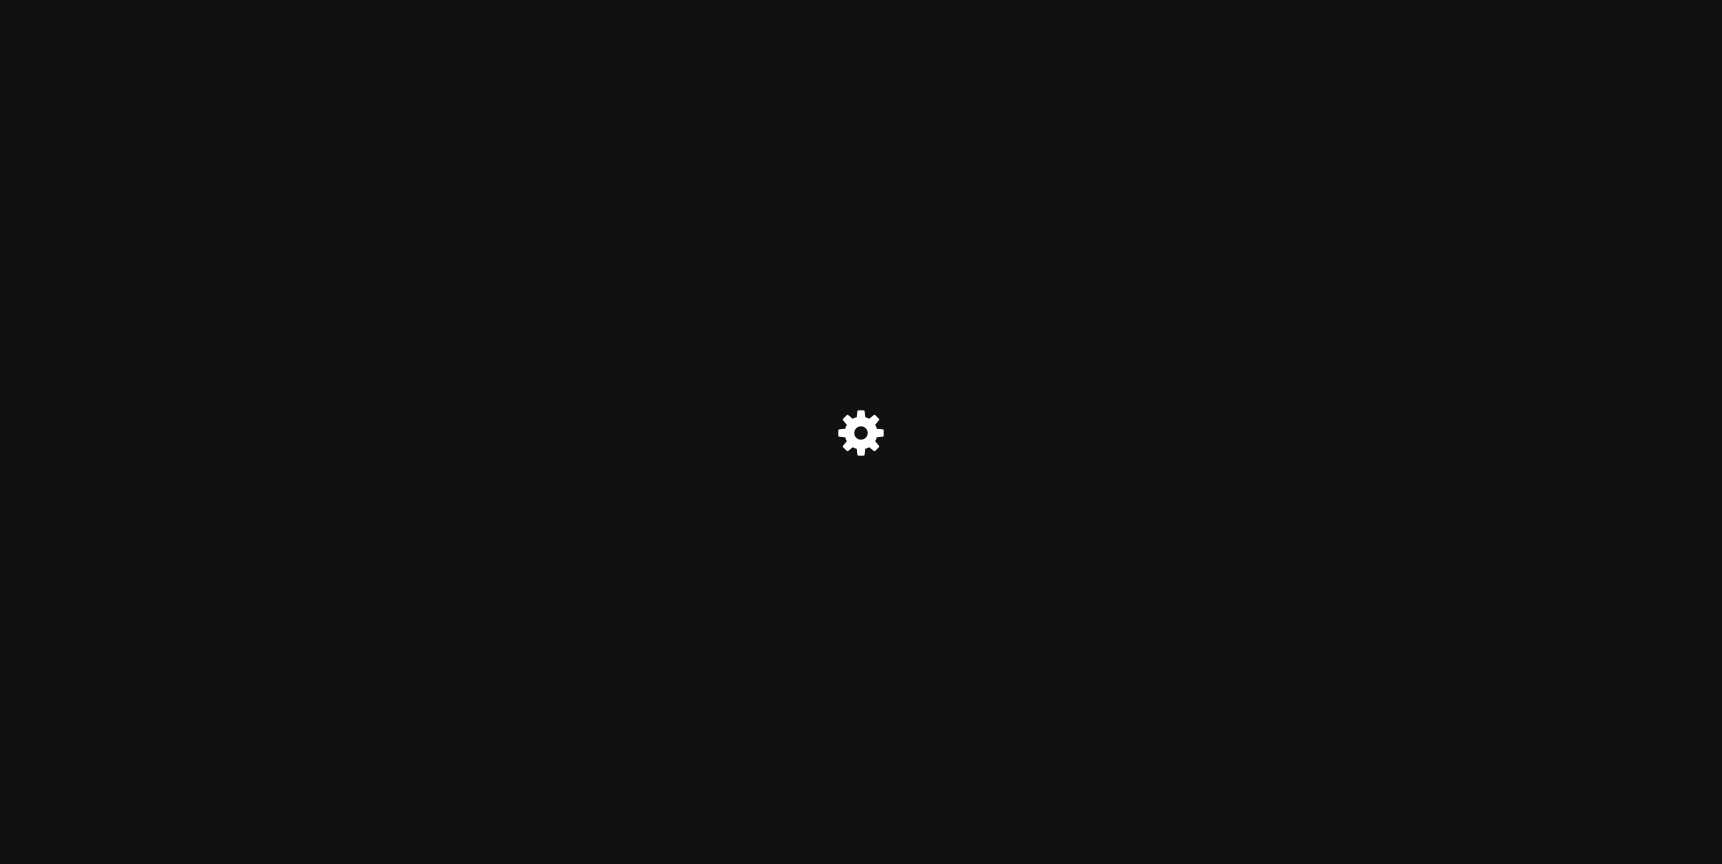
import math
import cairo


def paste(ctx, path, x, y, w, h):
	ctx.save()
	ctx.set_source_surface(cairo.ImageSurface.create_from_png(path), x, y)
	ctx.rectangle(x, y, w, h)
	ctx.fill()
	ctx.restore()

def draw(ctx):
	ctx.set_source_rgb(0.067, 0.067, 0.067)
	ctx.paint()
	paste(ctx, 'media/1.png', 838, 410, 46, 46)


surface = cairo.ImageSurface(cairo.FORMAT_RGB24, 1722, 864)
ctx = cairo.Context(surface)
options = cairo.FontOptions()
options.set_hint_metrics(cairo.HINT_METRICS_OFF)
options.set_hint_style(cairo.HINT_STYLE_NONE)
ctx.set_font_options(options)
ctx.set_miter_limit(4)
draw(ctx)
surface.write_to_png('image.png')
